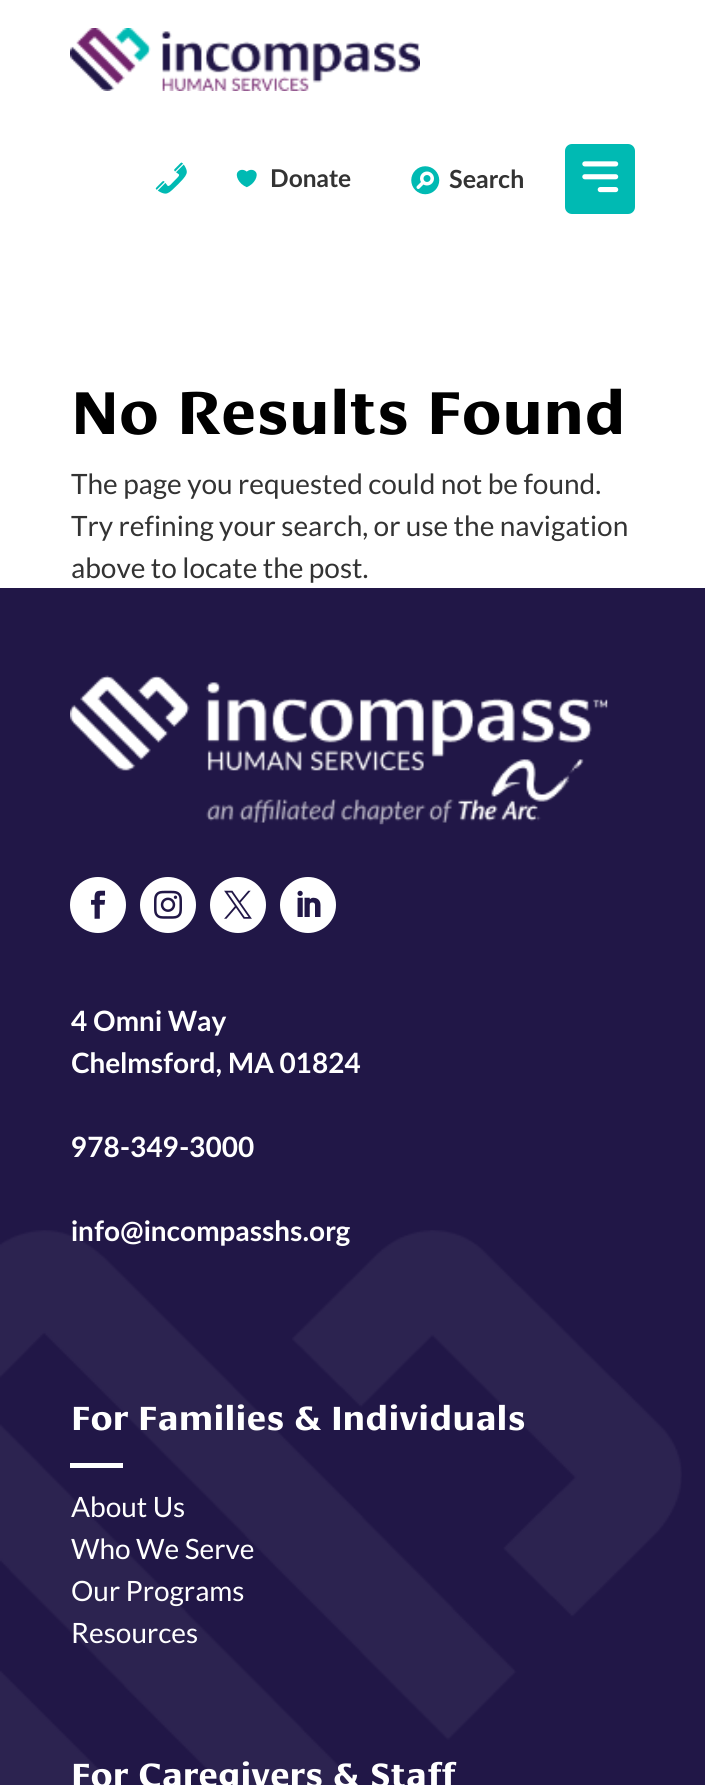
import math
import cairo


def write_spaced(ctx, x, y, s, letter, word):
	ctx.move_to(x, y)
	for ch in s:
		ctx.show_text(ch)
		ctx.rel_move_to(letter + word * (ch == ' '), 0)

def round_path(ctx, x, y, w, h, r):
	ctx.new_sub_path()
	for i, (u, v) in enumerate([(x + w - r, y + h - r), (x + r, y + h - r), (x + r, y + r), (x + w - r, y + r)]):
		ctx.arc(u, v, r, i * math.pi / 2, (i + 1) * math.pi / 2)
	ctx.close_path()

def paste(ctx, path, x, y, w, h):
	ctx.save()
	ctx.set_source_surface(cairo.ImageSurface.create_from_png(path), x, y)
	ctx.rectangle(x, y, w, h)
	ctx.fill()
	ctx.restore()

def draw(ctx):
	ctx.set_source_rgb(1, 1, 1)
	ctx.paint()
	paste(ctx, 'media/1.png', 70, 28, 350, 63)
	paste(ctx, 'media/2.png', 155, 162, 32, 32)
	paste(ctx, 'media/3.png', 236, 169, 21, 19)
	ctx.select_font_face('Lato', cairo.FONT_SLANT_NORMAL, cairo.FONT_WEIGHT_BOLD)
	ctx.set_font_size(24.5)
	ctx.set_source_rgb(0.2, 0.2, 0.2)
	ctx.move_to(270, 187)
	ctx.show_text('Donate')
	paste(ctx, 'media/4.png', 411, 166, 29, 29)
	ctx.set_font_size(25)
	ctx.move_to(449, 188)
	ctx.show_text('Search')
	ctx.set_source_rgb(0, 0.729, 0.702)
	round_path(ctx, 566, 145, 68, 68, 6)
	ctx.fill_preserve()
	ctx.stroke()
	paste(ctx, 'media/5.png', 582, 161, 37, 32)
	ctx.select_font_face('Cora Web', cairo.FONT_SLANT_NORMAL, cairo.FONT_WEIGHT_BOLD)
	ctx.set_font_size(63)
	ctx.set_source_rgb(0, 0, 0)
	ctx.move_to(71, 434)
	ctx.show_text('No Results Found')
	ctx.select_font_face('Lato')
	ctx.set_font_size(28)
	ctx.set_source_rgb(0.2, 0.2, 0.2)
	for x, y, s in [
		(71, 494, 'The page you requested could not be found.'),
		(71, 536, 'Try refining your search, or use the navigation'),
		(71, 578, 'above to locate the post.'),
	]:
		ctx.move_to(x, y)
		ctx.show_text(s)
	ctx.set_source_rgb(0.129, 0.09, 0.278)
	ctx.rectangle(0, 588, 705, 1197)
	ctx.fill()
	paste(ctx, 'media/6.png', 70, 675, 538, 150)
	ctx.set_source_rgb(1, 1, 1)
	ctx.arc(98, 905, 28, 0, 2 * math.pi)
	ctx.fill()
	paste(ctx, 'media/7.png', 91, 890, 15, 29)
	ctx.arc(168, 905, 28, 0, 2 * math.pi)
	ctx.fill()
	paste(ctx, 'media/8.png', 154, 890, 28, 29)
	ctx.arc(238, 905, 28, 0, 2 * math.pi)
	ctx.fill()
	paste(ctx, 'media/9.png', 224, 890, 28, 29)
	ctx.arc(308, 905, 28, 0, 2 * math.pi)
	ctx.fill()
	paste(ctx, 'media/10.png', 297, 890, 24, 27)
	ctx.select_font_face('Lato', cairo.FONT_SLANT_NORMAL, cairo.FONT_WEIGHT_BOLD)
	write_spaced(ctx, 71, 1031, '4 Omni Way', 0, -1)
	write_spaced(ctx, 71, 1073, 'Chelmsford, MA 01824', 0, -1)
	ctx.move_to(71, 1157)
	ctx.show_text('978-349-3000')
	paste(ctx, 'media/11.png', 0, 1230, 682, 555)
	ctx.move_to(71, 1241)
	ctx.show_text('info@incompasshs.org')
	ctx.select_font_face('Cora Web', cairo.FONT_SLANT_NORMAL, cairo.FONT_WEIGHT_BOLD)
	ctx.set_font_size(35)
	ctx.move_to(71, 1430)
	ctx.show_text('For Families & Individuals')
	ctx.rectangle(70, 1463, 53, 5)
	ctx.fill()
	ctx.select_font_face('Lato')
	ctx.set_font_size(28)
	for x, y, s in [
		(71, 1517, 'About Us'),
		(71, 1559, 'Who We Serve'),
		(71, 1601, 'Our Programs'),
		(71, 1643, 'Resources'),
	]:
		ctx.move_to(x, y)
		ctx.show_text(s)
	ctx.select_font_face('Cora Web', cairo.FONT_SLANT_NORMAL, cairo.FONT_WEIGHT_BOLD)
	ctx.set_font_size(35)
	ctx.move_to(71, 1787)
	ctx.show_text('For Caregivers & Staff')


surface = cairo.ImageSurface(cairo.FORMAT_RGB24, 705, 1785)
ctx = cairo.Context(surface)
options = cairo.FontOptions()
options.set_hint_metrics(cairo.HINT_METRICS_OFF)
options.set_hint_style(cairo.HINT_STYLE_NONE)
ctx.set_font_options(options)
ctx.set_miter_limit(4)
draw(ctx)
surface.write_to_png('image.png')
